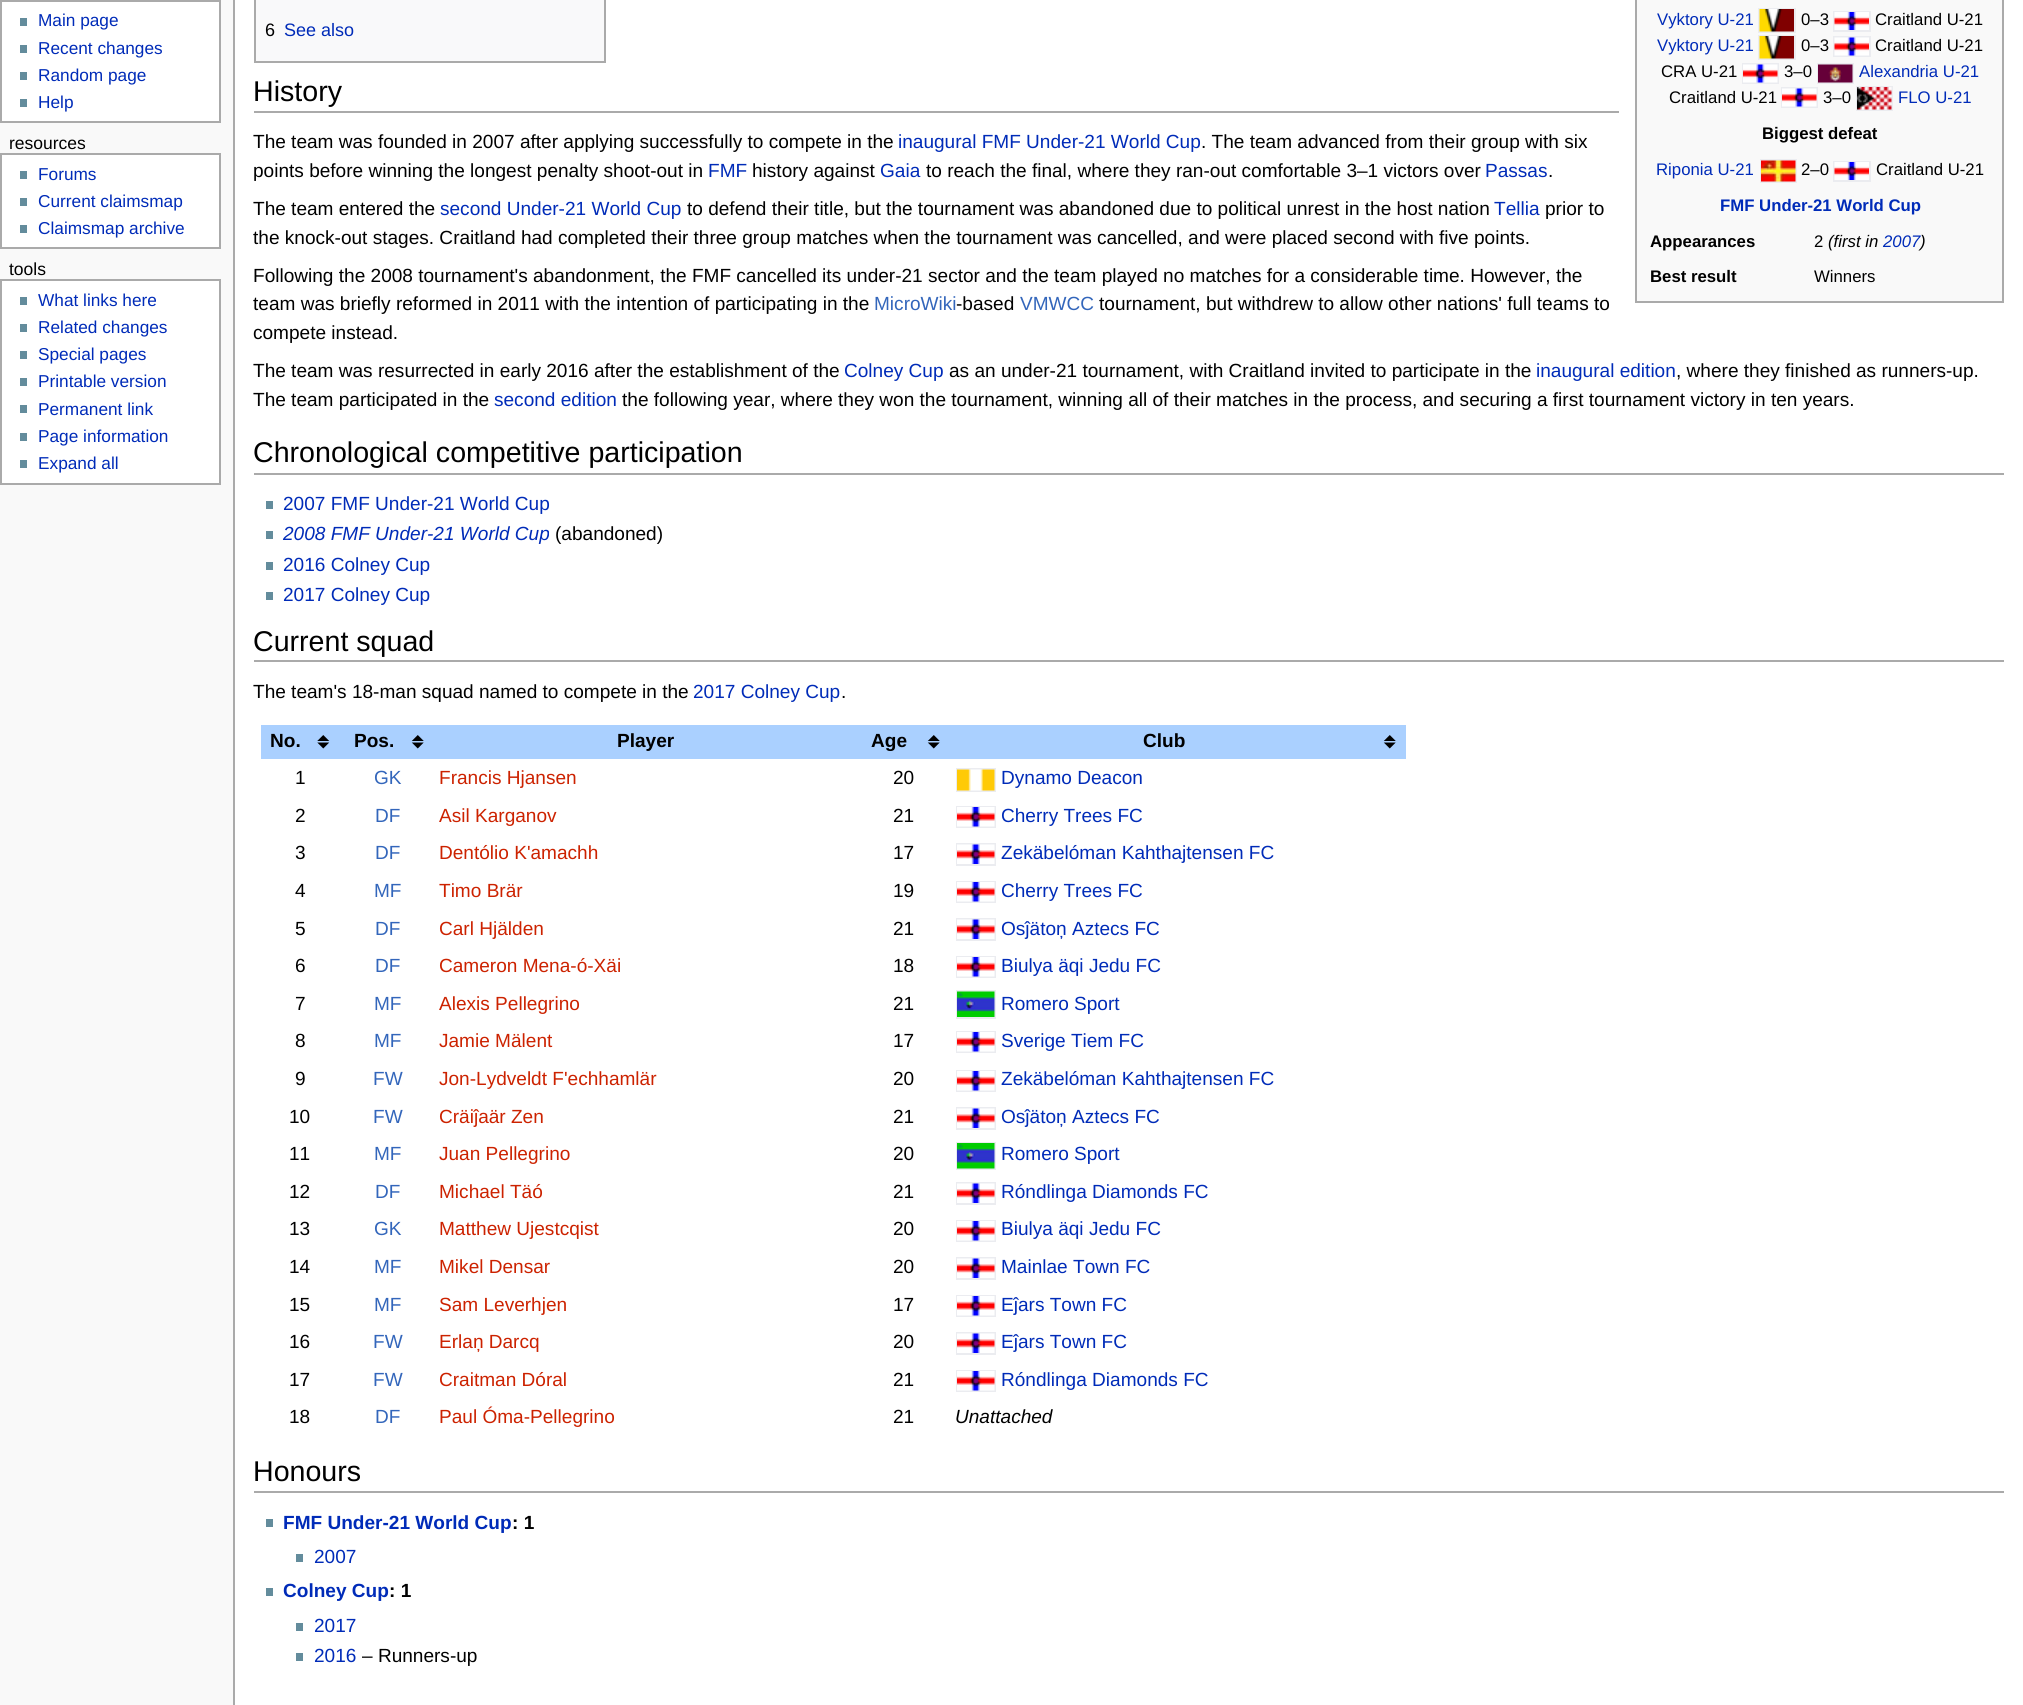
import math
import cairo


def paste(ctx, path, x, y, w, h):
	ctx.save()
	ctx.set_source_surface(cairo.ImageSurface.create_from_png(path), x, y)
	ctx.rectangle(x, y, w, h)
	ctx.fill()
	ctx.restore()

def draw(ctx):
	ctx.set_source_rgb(0.976, 0.976, 0.976)
	ctx.paint()
	ctx.set_source_rgb(1, 1, 1)
	ctx.rectangle(1, 1, 219, 121)
	ctx.fill_preserve()
	ctx.set_source_rgb(0.667, 0.667, 0.667)
	ctx.stroke()
	ctx.set_source_rgb(0.388, 0.549, 0.612)
	ctx.rectangle(20, 18, 7, 8)
	ctx.fill()
	ctx.select_font_face('Liberation Sans')
	ctx.set_font_size(17.25)
	ctx.set_source_rgb(0, 0.169, 0.722)
	ctx.move_to(38, 26)
	ctx.show_text('Main page')
	ctx.set_source_rgb(0.388, 0.549, 0.612)
	ctx.rectangle(20, 45, 7, 8)
	ctx.fill()
	ctx.set_source_rgb(0, 0.169, 0.722)
	ctx.move_to(38, 54)
	ctx.show_text('Recent changes')
	ctx.set_source_rgb(0.388, 0.549, 0.612)
	ctx.rectangle(20, 72, 7, 8)
	ctx.fill()
	ctx.set_source_rgb(0, 0.169, 0.722)
	ctx.move_to(38, 81)
	ctx.show_text('Random page')
	ctx.set_source_rgb(0.388, 0.549, 0.612)
	ctx.rectangle(20, 99, 7, 8)
	ctx.fill()
	ctx.set_source_rgb(0, 0.169, 0.722)
	ctx.move_to(38, 108)
	ctx.show_text('Help')
	ctx.set_font_size(17.5)
	ctx.set_source_rgb(0, 0, 0)
	ctx.move_to(9, 149)
	ctx.show_text('resources')
	ctx.set_source_rgb(1, 1, 1)
	ctx.rectangle(1, 154, 219, 94)
	ctx.fill_preserve()
	ctx.set_source_rgb(0.667, 0.667, 0.667)
	ctx.stroke()
	ctx.set_source_rgb(0.388, 0.549, 0.612)
	ctx.rectangle(20, 171, 7, 8)
	ctx.fill()
	ctx.set_font_size(17.25)
	ctx.set_source_rgb(0, 0.169, 0.722)
	ctx.move_to(38, 180)
	ctx.show_text('Forums')
	ctx.set_source_rgb(0.388, 0.549, 0.612)
	ctx.rectangle(20, 198, 7, 8)
	ctx.fill()
	ctx.set_source_rgb(0, 0.169, 0.722)
	ctx.move_to(38, 207)
	ctx.show_text('Current claimsmap')
	ctx.set_source_rgb(0.388, 0.549, 0.612)
	ctx.rectangle(20, 225, 7, 8)
	ctx.fill()
	ctx.set_source_rgb(0, 0.169, 0.722)
	ctx.move_to(38, 234)
	ctx.show_text('Claimsmap archive')
	ctx.set_font_size(17.5)
	ctx.set_source_rgb(0, 0, 0)
	ctx.move_to(9, 275)
	ctx.show_text('tools')
	ctx.set_source_rgb(1, 1, 1)
	ctx.rectangle(1, 280, 219, 204)
	ctx.fill_preserve()
	ctx.set_source_rgb(0.667, 0.667, 0.667)
	ctx.stroke()
	ctx.set_source_rgb(0.388, 0.549, 0.612)
	ctx.rectangle(20, 297, 7, 8)
	ctx.fill()
	ctx.set_font_size(17.25)
	ctx.set_source_rgb(0, 0.169, 0.722)
	ctx.move_to(38, 306)
	ctx.show_text('What links here')
	ctx.set_source_rgb(0.388, 0.549, 0.612)
	ctx.rectangle(20, 324, 7, 8)
	ctx.fill()
	ctx.set_source_rgb(0, 0.169, 0.722)
	ctx.move_to(38, 333)
	ctx.show_text('Related changes')
	ctx.set_source_rgb(0.388, 0.549, 0.612)
	ctx.rectangle(20, 351, 7, 8)
	ctx.fill()
	ctx.set_source_rgb(0, 0.169, 0.722)
	ctx.move_to(38, 360)
	ctx.show_text('Special pages')
	ctx.set_source_rgb(0.388, 0.549, 0.612)
	ctx.rectangle(20, 378, 7, 8)
	ctx.fill()
	ctx.set_source_rgb(0, 0.169, 0.722)
	ctx.move_to(38, 387)
	ctx.show_text('Printable version')
	ctx.set_source_rgb(0.388, 0.549, 0.612)
	ctx.rectangle(20, 405, 7, 8)
	ctx.fill()
	ctx.set_source_rgb(0, 0.169, 0.722)
	ctx.move_to(38, 415)
	ctx.show_text('Permanent link')
	ctx.set_source_rgb(0.388, 0.549, 0.612)
	ctx.rectangle(20, 433, 7, 8)
	ctx.fill()
	ctx.set_source_rgb(0, 0.169, 0.722)
	ctx.move_to(38, 442)
	ctx.show_text('Page information')
	ctx.set_source_rgb(0.388, 0.549, 0.612)
	ctx.rectangle(20, 460, 7, 8)
	ctx.fill()
	ctx.set_source_rgb(0, 0.169, 0.722)
	ctx.move_to(38, 469)
	ctx.show_text('Expand all')
	ctx.set_source_rgb(1, 1, 1)
	ctx.rectangle(235, 0, 1788, 1705)
	ctx.fill()
	ctx.set_source_rgb(0.667, 0.667, 0.667)
	ctx.rectangle(233, 0, 2, 1705)
	ctx.fill()
	ctx.set_source_rgb(0.973, 0.976, 0.98)
	ctx.rectangle(255, -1, 350, 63)
	ctx.fill_preserve()
	ctx.set_source_rgb(0.667, 0.667, 0.667)
	ctx.stroke()
	ctx.set_font_size(18)
	ctx.set_source_rgb(0, 0, 0)
	ctx.move_to(265, 36)
	ctx.show_text('6')
	ctx.set_source_rgb(0, 0.169, 0.722)
	ctx.move_to(284, 36)
	ctx.show_text('See also')
	ctx.set_source_rgb(0.976, 0.976, 0.976)
	ctx.rectangle(1636, -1, 367, 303)
	ctx.fill_preserve()
	ctx.set_source_rgb(0.667, 0.667, 0.667)
	ctx.stroke()
	ctx.rectangle(1759, 9, 36, 23)
	ctx.set_source_rgb(0.918, 0.925, 0.941)
	ctx.stroke()
	ctx.set_font_size(16.75)
	ctx.set_source_rgb(0, 0.169, 0.722)
	ctx.move_to(1657, 25)
	ctx.show_text('Vyktory U-21')
	paste(ctx, 'media/1.png', 1759, 9, 35, 23)
	ctx.rectangle(1834, 12, 36, 19)
	ctx.set_source_rgb(0.918, 0.925, 0.941)
	ctx.stroke()
	ctx.set_source_rgb(0, 0, 0)
	ctx.move_to(1801, 25)
	ctx.show_text('0–3')
	paste(ctx, 'media/2.png', 1834, 12, 35, 18)
	ctx.move_to(1875, 25)
	ctx.show_text('Craitland U-21')
	ctx.rectangle(1759, 36, 36, 23)
	ctx.set_source_rgb(0.918, 0.925, 0.941)
	ctx.stroke()
	paste(ctx, 'media/1.png', 1759, 36, 35, 23)
	ctx.rectangle(1834, 37, 36, 19)
	ctx.stroke()
	ctx.set_source_rgb(0, 0.169, 0.722)
	ctx.move_to(1657, 51)
	ctx.show_text('Vyktory U-21')
	ctx.set_source_rgb(0, 0, 0)
	ctx.move_to(1801, 51)
	ctx.show_text('0–3')
	paste(ctx, 'media/3.png', 1834, 37, 35, 19)
	ctx.move_to(1875, 51)
	ctx.show_text('Craitland U-21')
	ctx.rectangle(1743, 64, 35, 19)
	ctx.set_source_rgb(0.918, 0.925, 0.941)
	ctx.stroke()
	ctx.rectangle(1818, 64, 35, 19)
	ctx.stroke()
	ctx.set_source_rgb(0, 0, 0)
	ctx.move_to(1661, 77)
	ctx.show_text('CRA U-21')
	paste(ctx, 'media/4.png', 1743, 64, 35, 19)
	ctx.move_to(1784, 77)
	ctx.show_text('3–0')
	paste(ctx, 'media/5.png', 1818, 64, 35, 19)
	ctx.set_source_rgb(0, 0.169, 0.722)
	ctx.move_to(1859, 77)
	ctx.show_text('Alexandria U-21')
	ctx.rectangle(1782, 88, 35, 19)
	ctx.set_source_rgb(0.918, 0.925, 0.941)
	ctx.stroke()
	ctx.rectangle(1857, 87, 35, 23)
	ctx.stroke()
	ctx.set_source_rgb(0, 0, 0)
	ctx.move_to(1669, 103)
	ctx.show_text('Craitland U-21')
	paste(ctx, 'media/4.png', 1782, 88, 35, 19)
	ctx.move_to(1823, 103)
	ctx.show_text('3–0')
	paste(ctx, 'media/6.png', 1857, 87, 35, 23)
	ctx.set_source_rgb(0, 0.169, 0.722)
	ctx.move_to(1898, 103)
	ctx.show_text('FLO U-21')
	ctx.select_font_face('Liberation Sans', cairo.FONT_SLANT_NORMAL, cairo.FONT_WEIGHT_BOLD)
	ctx.set_source_rgb(0, 0, 0)
	ctx.move_to(1762, 139)
	ctx.show_text('Biggest defeat')
	ctx.rectangle(1761, 160, 35, 22)
	ctx.set_source_rgb(0.918, 0.925, 0.941)
	ctx.stroke()
	ctx.select_font_face('Liberation Sans')
	ctx.set_source_rgb(0, 0.169, 0.722)
	ctx.move_to(1656, 175)
	ctx.show_text('Riponia U-21')
	paste(ctx, 'media/7.png', 1761, 160, 35, 22)
	ctx.rectangle(1834, 162, 36, 19)
	ctx.set_source_rgb(0.918, 0.925, 0.941)
	ctx.stroke()
	ctx.set_source_rgb(0, 0, 0)
	ctx.move_to(1801, 175)
	ctx.show_text('2–0')
	paste(ctx, 'media/2.png', 1834, 162, 35, 18)
	ctx.move_to(1876, 175)
	ctx.show_text('Craitland U-21')
	ctx.select_font_face('Liberation Sans', cairo.FONT_SLANT_NORMAL, cairo.FONT_WEIGHT_BOLD)
	ctx.set_source_rgb(0, 0.169, 0.722)
	ctx.move_to(1720, 211)
	ctx.show_text('FMF Under-21 World Cup')
	ctx.set_source_rgb(0, 0, 0)
	ctx.move_to(1650, 247)
	ctx.show_text('Appearances')
	ctx.select_font_face('Liberation Sans')
	ctx.move_to(1814, 247)
	ctx.show_text('2')
	ctx.select_font_face('Liberation Sans', cairo.FONT_SLANT_ITALIC)
	ctx.move_to(1828, 247)
	ctx.show_text('(first in')
	ctx.set_source_rgb(0, 0.169, 0.722)
	ctx.move_to(1883, 247)
	ctx.show_text('2007')
	ctx.set_source_rgb(0, 0, 0)
	ctx.move_to(1920, 247)
	ctx.show_text(')')
	ctx.select_font_face('Liberation Sans', cairo.FONT_SLANT_NORMAL, cairo.FONT_WEIGHT_BOLD)
	ctx.move_to(1650, 282)
	ctx.show_text('Best result')
	ctx.select_font_face('Liberation Sans')
	ctx.move_to(1814, 282)
	ctx.show_text('Winners')
	ctx.set_source_rgb(0.667, 0.667, 0.667)
	ctx.rectangle(254, 111, 1365, 2)
	ctx.fill()
	ctx.set_font_size(28.6)
	ctx.set_source_rgb(0, 0, 0)
	ctx.move_to(253, 101)
	ctx.show_text('History')
	ctx.set_font_size(19.05)
	ctx.move_to(253, 148)
	ctx.show_text('The team was founded in 2007 after applying successfully to compete in the')
	ctx.set_source_rgb(0, 0.169, 0.722)
	ctx.move_to(898, 148)
	ctx.show_text('inaugural FMF Under-21 World Cup')
	ctx.set_source_rgb(0, 0, 0)
	ctx.move_to(1201, 148)
	ctx.show_text('. The team advanced from their group with six')
	ctx.move_to(253, 177)
	ctx.show_text('points before winning the longest penalty shoot-out in')
	ctx.set_source_rgb(0, 0.169, 0.722)
	ctx.move_to(708, 177)
	ctx.show_text('FMF')
	ctx.set_source_rgb(0, 0, 0)
	ctx.move_to(752, 177)
	ctx.show_text('history against')
	ctx.set_source_rgb(0, 0.169, 0.722)
	ctx.move_to(880, 177)
	ctx.show_text('Gaia')
	ctx.set_source_rgb(0, 0, 0)
	ctx.move_to(926, 177)
	ctx.show_text('to reach the final, where they ran-out comfortable 3–1 victors over')
	ctx.set_source_rgb(0, 0.169, 0.722)
	ctx.move_to(1485, 177)
	ctx.show_text('Passas')
	ctx.set_source_rgb(0, 0, 0)
	ctx.move_to(1548, 177)
	ctx.show_text('.')
	ctx.move_to(253, 215)
	ctx.show_text('The team entered the')
	ctx.set_source_rgb(0, 0.169, 0.722)
	ctx.move_to(440, 215)
	ctx.show_text('second Under-21 World Cup')
	ctx.set_source_rgb(0, 0, 0)
	ctx.move_to(687, 215)
	ctx.show_text('to defend their title, but the tournament was abandoned due to political unrest in the host nation')
	ctx.set_source_rgb(0, 0.169, 0.722)
	ctx.move_to(1494, 215)
	ctx.show_text('Tellia')
	ctx.set_source_rgb(0, 0, 0)
	for x, y, s in [
		(1545, 215, 'prior to'),
		(253, 244, 'the knock-out stages. Craitland had completed their three group matches when the tournament was cancelled, and were placed second with five points.'),
		(253, 282, 'Following the 2008 tournament\'s abandonment, the FMF cancelled its under-21 sector and the team played no matches for a considerable time. However, the'),
		(253, 310, 'team was briefly reformed in 2011 with the intention of participating in the'),
	]:
		ctx.move_to(x, y)
		ctx.show_text(s)
	ctx.set_source_rgb(0.2, 0.4, 0.733)
	ctx.move_to(874, 310)
	ctx.show_text('MicroWiki')
	ctx.set_source_rgb(0, 0, 0)
	ctx.move_to(956, 310)
	ctx.show_text('-based')
	ctx.set_source_rgb(0.2, 0.4, 0.733)
	ctx.move_to(1020, 310)
	ctx.show_text('VMWCC')
	ctx.set_source_rgb(0, 0, 0)
	for x, y, s in [
		(1099, 310, 'tournament, but withdrew to allow other nations\' full teams to'),
		(253, 339, 'compete instead.'),
		(253, 377, 'The team was resurrected in early 2016 after the establishment of the'),
	]:
		ctx.move_to(x, y)
		ctx.show_text(s)
	ctx.set_source_rgb(0, 0.169, 0.722)
	ctx.move_to(844, 377)
	ctx.show_text('Colney Cup')
	ctx.set_source_rgb(0, 0, 0)
	ctx.move_to(949, 377)
	ctx.show_text('as an under-21 tournament, with Craitland invited to participate in the')
	ctx.set_source_rgb(0, 0.169, 0.722)
	ctx.move_to(1536, 377)
	ctx.show_text('inaugural edition')
	ctx.set_source_rgb(0, 0, 0)
	ctx.move_to(1676, 377)
	ctx.show_text(', where they finished as runners-up.')
	ctx.move_to(253, 406)
	ctx.show_text('The team participated in the')
	ctx.set_source_rgb(0, 0.169, 0.722)
	ctx.move_to(494, 406)
	ctx.show_text('second edition')
	ctx.set_source_rgb(0, 0, 0)
	ctx.move_to(622, 406)
	ctx.show_text('the following year, where they won the tournament, winning all of their matches in the process, and securing a first tournament victory in ten years.')
	ctx.set_source_rgb(0.667, 0.667, 0.667)
	ctx.rectangle(254, 473, 1750, 2)
	ctx.fill()
	ctx.set_font_size(28.6)
	ctx.set_source_rgb(0, 0, 0)
	ctx.move_to(253, 462)
	ctx.show_text('Chronological competitive participation')
	ctx.set_source_rgb(0.388, 0.549, 0.612)
	ctx.rectangle(266, 501, 7, 8)
	ctx.fill()
	ctx.set_font_size(19.05)
	ctx.set_source_rgb(0, 0.169, 0.722)
	ctx.move_to(283, 510)
	ctx.show_text('2007 FMF Under-21 World Cup')
	ctx.set_source_rgb(0.388, 0.549, 0.612)
	ctx.rectangle(266, 531, 7, 8)
	ctx.fill()
	ctx.select_font_face('Liberation Sans', cairo.FONT_SLANT_ITALIC)
	ctx.set_source_rgb(0, 0.169, 0.722)
	ctx.move_to(283, 540)
	ctx.show_text('2008 FMF Under-21 World Cup')
	ctx.select_font_face('Liberation Sans')
	ctx.set_source_rgb(0, 0, 0)
	ctx.move_to(555, 540)
	ctx.show_text('(abandoned)')
	ctx.set_source_rgb(0.388, 0.549, 0.612)
	ctx.rectangle(266, 562, 7, 8)
	ctx.fill()
	ctx.set_source_rgb(0, 0.169, 0.722)
	ctx.move_to(283, 571)
	ctx.show_text('2016 Colney Cup')
	ctx.set_source_rgb(0.388, 0.549, 0.612)
	ctx.rectangle(266, 592, 7, 8)
	ctx.fill()
	ctx.set_source_rgb(0, 0.169, 0.722)
	ctx.move_to(283, 601)
	ctx.show_text('2017 Colney Cup')
	ctx.set_source_rgb(0.667, 0.667, 0.667)
	ctx.rectangle(254, 660, 1750, 2)
	ctx.fill()
	ctx.set_font_size(28.6)
	ctx.set_source_rgb(0, 0, 0)
	ctx.move_to(253, 651)
	ctx.show_text('Current squad')
	ctx.set_font_size(19.05)
	ctx.move_to(253, 698)
	ctx.show_text('The team\'s 18-man squad named to compete in the')
	ctx.set_source_rgb(0, 0.169, 0.722)
	ctx.move_to(693, 698)
	ctx.show_text('2017 Colney Cup')
	ctx.set_source_rgb(0, 0, 0)
	ctx.move_to(841, 698)
	ctx.show_text('.')
	ctx.set_source_rgb(0.667, 0.816, 1)
	ctx.rectangle(261, 725, 1145, 34)
	ctx.fill()
	paste(ctx, 'media/8.png', 317, 735, 13, 14)
	ctx.select_font_face('Liberation Sans', cairo.FONT_SLANT_NORMAL, cairo.FONT_WEIGHT_BOLD)
	ctx.set_source_rgb(0, 0, 0)
	ctx.move_to(270, 747)
	ctx.show_text('No.')
	paste(ctx, 'media/9.png', 411, 735, 13, 14)
	ctx.move_to(354, 747)
	ctx.show_text('Pos.')
	ctx.move_to(617, 747)
	ctx.show_text('Player')
	paste(ctx, 'media/9.png', 927, 735, 13, 14)
	ctx.move_to(871, 747)
	ctx.show_text('Age')
	paste(ctx, 'media/9.png', 1383, 735, 13, 14)
	ctx.move_to(1143, 747)
	ctx.show_text('Club')
	ctx.select_font_face('Liberation Sans')
	ctx.move_to(295, 784)
	ctx.show_text('1')
	ctx.set_source_rgb(0.2, 0.4, 0.733)
	ctx.move_to(374, 784)
	ctx.show_text('GK')
	ctx.set_source_rgb(0.8, 0.133, 0)
	ctx.move_to(439, 784)
	ctx.show_text('Francis Hjansen')
	ctx.set_source_rgb(0, 0, 0)
	ctx.move_to(893, 784)
	ctx.show_text('20')
	ctx.rectangle(957, 769, 38, 22)
	ctx.set_source_rgb(0.918, 0.925, 0.941)
	ctx.stroke()
	paste(ctx, 'media/10.png', 957, 769, 38, 22)
	ctx.set_source_rgb(0, 0.169, 0.722)
	ctx.move_to(1001, 784)
	ctx.show_text('Dynamo Deacon')
	ctx.set_source_rgb(0, 0, 0)
	ctx.move_to(295, 822)
	ctx.show_text('2')
	ctx.set_source_rgb(0.2, 0.4, 0.733)
	ctx.move_to(375, 822)
	ctx.show_text('DF')
	ctx.set_source_rgb(0.8, 0.133, 0)
	ctx.move_to(439, 822)
	ctx.show_text('Asil Karganov')
	ctx.set_source_rgb(0, 0, 0)
	ctx.move_to(893, 822)
	ctx.show_text('21')
	ctx.rectangle(957, 807, 38, 20)
	ctx.set_source_rgb(0.918, 0.925, 0.941)
	ctx.stroke()
	paste(ctx, 'media/11.png', 957, 807, 38, 20)
	ctx.set_source_rgb(0, 0.169, 0.722)
	ctx.move_to(1001, 822)
	ctx.show_text('Cherry Trees FC')
	ctx.set_source_rgb(0, 0, 0)
	ctx.move_to(295, 859)
	ctx.show_text('3')
	ctx.set_source_rgb(0.2, 0.4, 0.733)
	ctx.move_to(375, 859)
	ctx.show_text('DF')
	ctx.set_source_rgb(0.8, 0.133, 0)
	ctx.move_to(439, 859)
	ctx.show_text('Dentólio K\'amachh')
	ctx.set_source_rgb(0, 0, 0)
	ctx.move_to(893, 859)
	ctx.show_text('17')
	ctx.rectangle(957, 844, 38, 21)
	ctx.set_source_rgb(0.918, 0.925, 0.941)
	ctx.stroke()
	paste(ctx, 'media/12.png', 957, 844, 38, 20)
	ctx.set_source_rgb(0, 0.169, 0.722)
	ctx.move_to(1001, 859)
	ctx.show_text('Zekäbelóman Kahthajtensen FC')
	ctx.set_source_rgb(0, 0, 0)
	ctx.move_to(295, 897)
	ctx.show_text('4')
	ctx.set_source_rgb(0.2, 0.4, 0.733)
	ctx.move_to(374, 897)
	ctx.show_text('MF')
	ctx.set_source_rgb(0.8, 0.133, 0)
	ctx.move_to(439, 897)
	ctx.show_text('Timo Brär')
	ctx.set_source_rgb(0, 0, 0)
	ctx.move_to(893, 897)
	ctx.show_text('19')
	ctx.rectangle(957, 882, 38, 20)
	ctx.set_source_rgb(0.918, 0.925, 0.941)
	ctx.stroke()
	paste(ctx, 'media/11.png', 957, 882, 38, 20)
	ctx.set_source_rgb(0, 0.169, 0.722)
	ctx.move_to(1001, 897)
	ctx.show_text('Cherry Trees FC')
	ctx.set_source_rgb(0, 0, 0)
	ctx.move_to(295, 935)
	ctx.show_text('5')
	ctx.set_source_rgb(0.2, 0.4, 0.733)
	ctx.move_to(375, 935)
	ctx.show_text('DF')
	ctx.set_source_rgb(0.8, 0.133, 0)
	ctx.move_to(439, 935)
	ctx.show_text('Carl Hjälden')
	ctx.set_source_rgb(0, 0, 0)
	ctx.move_to(893, 935)
	ctx.show_text('21')
	ctx.rectangle(957, 919, 38, 21)
	ctx.set_source_rgb(0.918, 0.925, 0.941)
	ctx.stroke()
	paste(ctx, 'media/12.png', 957, 919, 38, 20)
	ctx.set_source_rgb(0, 0.169, 0.722)
	ctx.move_to(1001, 935)
	ctx.show_text('Osĵätoņ Aztecs FC')
	ctx.set_source_rgb(0, 0, 0)
	ctx.move_to(295, 972)
	ctx.show_text('6')
	ctx.set_source_rgb(0.2, 0.4, 0.733)
	ctx.move_to(375, 972)
	ctx.show_text('DF')
	ctx.set_source_rgb(0.8, 0.133, 0)
	ctx.move_to(439, 972)
	ctx.show_text('Cameron Mena-ó-Xäi')
	ctx.set_source_rgb(0, 0, 0)
	ctx.move_to(893, 972)
	ctx.show_text('18')
	ctx.rectangle(957, 957, 38, 20)
	ctx.set_source_rgb(0.918, 0.925, 0.941)
	ctx.stroke()
	paste(ctx, 'media/11.png', 957, 957, 38, 20)
	ctx.set_source_rgb(0, 0.169, 0.722)
	ctx.move_to(1001, 972)
	ctx.show_text('Biulya äqi Jedu FC')
	ctx.set_source_rgb(0, 0, 0)
	ctx.move_to(295, 1010)
	ctx.show_text('7')
	ctx.set_source_rgb(0.2, 0.4, 0.733)
	ctx.move_to(374, 1010)
	ctx.show_text('MF')
	ctx.set_source_rgb(0.8, 0.133, 0)
	ctx.move_to(439, 1010)
	ctx.show_text('Alexis Pellegrino')
	ctx.set_source_rgb(0, 0, 0)
	ctx.move_to(893, 1010)
	ctx.show_text('21')
	ctx.rectangle(957, 991, 38, 27)
	ctx.set_source_rgb(0.918, 0.925, 0.941)
	ctx.stroke()
	paste(ctx, 'media/13.png', 957, 991, 38, 26)
	ctx.set_source_rgb(0, 0.169, 0.722)
	ctx.move_to(1001, 1010)
	ctx.show_text('Romero Sport')
	ctx.set_source_rgb(0, 0, 0)
	ctx.move_to(295, 1047)
	ctx.show_text('8')
	ctx.set_source_rgb(0.2, 0.4, 0.733)
	ctx.move_to(374, 1047)
	ctx.show_text('MF')
	ctx.set_source_rgb(0.8, 0.133, 0)
	ctx.move_to(439, 1047)
	ctx.show_text('Jamie Mälent')
	ctx.set_source_rgb(0, 0, 0)
	ctx.move_to(893, 1047)
	ctx.show_text('17')
	ctx.rectangle(957, 1032, 38, 20)
	ctx.set_source_rgb(0.918, 0.925, 0.941)
	ctx.stroke()
	paste(ctx, 'media/11.png', 957, 1032, 38, 20)
	ctx.set_source_rgb(0, 0.169, 0.722)
	ctx.move_to(1001, 1047)
	ctx.show_text('Sverige Tiem FC')
	ctx.set_source_rgb(0, 0, 0)
	ctx.move_to(295, 1085)
	ctx.show_text('9')
	ctx.set_source_rgb(0.2, 0.4, 0.733)
	ctx.move_to(373, 1085)
	ctx.show_text('FW')
	ctx.set_source_rgb(0.8, 0.133, 0)
	ctx.move_to(439, 1085)
	ctx.show_text('Jon-Lydveldt F\'echhamlär')
	ctx.set_source_rgb(0, 0, 0)
	ctx.move_to(893, 1085)
	ctx.show_text('20')
	ctx.rectangle(957, 1071, 38, 20)
	ctx.set_source_rgb(0.918, 0.925, 0.941)
	ctx.stroke()
	paste(ctx, 'media/11.png', 957, 1071, 38, 20)
	ctx.set_source_rgb(0, 0.169, 0.722)
	ctx.move_to(1001, 1085)
	ctx.show_text('Zekäbelóman Kahthajtensen FC')
	ctx.set_source_rgb(0, 0, 0)
	ctx.move_to(289, 1123)
	ctx.show_text('10')
	ctx.set_source_rgb(0.2, 0.4, 0.733)
	ctx.move_to(373, 1123)
	ctx.show_text('FW')
	ctx.set_source_rgb(0.8, 0.133, 0)
	ctx.move_to(439, 1123)
	ctx.show_text('Cräiĵaär Zen')
	ctx.set_source_rgb(0, 0, 0)
	ctx.move_to(893, 1123)
	ctx.show_text('21')
	ctx.rectangle(957, 1108, 38, 21)
	ctx.set_source_rgb(0.918, 0.925, 0.941)
	ctx.stroke()
	paste(ctx, 'media/12.png', 957, 1108, 38, 20)
	ctx.set_source_rgb(0, 0.169, 0.722)
	ctx.move_to(1001, 1123)
	ctx.show_text('Osĵätoņ Aztecs FC')
	ctx.set_source_rgb(0, 0, 0)
	ctx.move_to(289, 1160)
	ctx.show_text('11')
	ctx.set_source_rgb(0.2, 0.4, 0.733)
	ctx.move_to(374, 1160)
	ctx.show_text('MF')
	ctx.set_source_rgb(0.8, 0.133, 0)
	ctx.move_to(439, 1160)
	ctx.show_text('Juan Pellegrino')
	ctx.set_source_rgb(0, 0, 0)
	ctx.move_to(893, 1160)
	ctx.show_text('20')
	ctx.rectangle(957, 1143, 38, 26)
	ctx.set_source_rgb(0.918, 0.925, 0.941)
	ctx.stroke()
	paste(ctx, 'media/14.png', 957, 1143, 38, 26)
	ctx.set_source_rgb(0, 0.169, 0.722)
	ctx.move_to(1001, 1160)
	ctx.show_text('Romero Sport')
	ctx.set_source_rgb(0, 0, 0)
	ctx.move_to(289, 1198)
	ctx.show_text('12')
	ctx.set_source_rgb(0.2, 0.4, 0.733)
	ctx.move_to(375, 1198)
	ctx.show_text('DF')
	ctx.set_source_rgb(0.8, 0.133, 0)
	ctx.move_to(439, 1198)
	ctx.show_text('Michael Täó')
	ctx.set_source_rgb(0, 0, 0)
	ctx.move_to(893, 1198)
	ctx.show_text('21')
	ctx.rectangle(957, 1183, 38, 21)
	ctx.set_source_rgb(0.918, 0.925, 0.941)
	ctx.stroke()
	paste(ctx, 'media/12.png', 957, 1183, 38, 20)
	ctx.set_source_rgb(0, 0.169, 0.722)
	ctx.move_to(1001, 1198)
	ctx.show_text('Róndlinga Diamonds FC')
	ctx.set_source_rgb(0, 0, 0)
	ctx.move_to(289, 1235)
	ctx.show_text('13')
	ctx.set_source_rgb(0.2, 0.4, 0.733)
	ctx.move_to(374, 1235)
	ctx.show_text('GK')
	ctx.set_source_rgb(0.8, 0.133, 0)
	ctx.move_to(439, 1235)
	ctx.show_text('Matthew Ujestcqist')
	ctx.set_source_rgb(0, 0, 0)
	ctx.move_to(893, 1235)
	ctx.show_text('20')
	ctx.rectangle(957, 1221, 38, 20)
	ctx.set_source_rgb(0.918, 0.925, 0.941)
	ctx.stroke()
	paste(ctx, 'media/11.png', 957, 1221, 38, 20)
	ctx.set_source_rgb(0, 0.169, 0.722)
	ctx.move_to(1001, 1235)
	ctx.show_text('Biulya äqi Jedu FC')
	ctx.set_source_rgb(0, 0, 0)
	ctx.move_to(289, 1273)
	ctx.show_text('14')
	ctx.set_source_rgb(0.2, 0.4, 0.733)
	ctx.move_to(374, 1273)
	ctx.show_text('MF')
	ctx.set_source_rgb(0.8, 0.133, 0)
	ctx.move_to(439, 1273)
	ctx.show_text('Mikel Densar')
	ctx.set_source_rgb(0, 0, 0)
	ctx.move_to(893, 1273)
	ctx.show_text('20')
	ctx.rectangle(957, 1258, 38, 21)
	ctx.set_source_rgb(0.918, 0.925, 0.941)
	ctx.stroke()
	paste(ctx, 'media/12.png', 957, 1258, 38, 20)
	ctx.set_source_rgb(0, 0.169, 0.722)
	ctx.move_to(1001, 1273)
	ctx.show_text('Mainlae Town FC')
	ctx.set_source_rgb(0, 0, 0)
	ctx.move_to(289, 1311)
	ctx.show_text('15')
	ctx.set_source_rgb(0.2, 0.4, 0.733)
	ctx.move_to(374, 1311)
	ctx.show_text('MF')
	ctx.set_source_rgb(0.8, 0.133, 0)
	ctx.move_to(439, 1311)
	ctx.show_text('Sam Leverhjen')
	ctx.set_source_rgb(0, 0, 0)
	ctx.move_to(893, 1311)
	ctx.show_text('17')
	ctx.rectangle(957, 1296, 38, 20)
	ctx.set_source_rgb(0.918, 0.925, 0.941)
	ctx.stroke()
	paste(ctx, 'media/11.png', 957, 1296, 38, 20)
	ctx.set_source_rgb(0, 0.169, 0.722)
	ctx.move_to(1001, 1311)
	ctx.show_text('Eĵars Town FC')
	ctx.set_source_rgb(0, 0, 0)
	ctx.move_to(289, 1348)
	ctx.show_text('16')
	ctx.set_source_rgb(0.2, 0.4, 0.733)
	ctx.move_to(373, 1348)
	ctx.show_text('FW')
	ctx.set_source_rgb(0.8, 0.133, 0)
	ctx.move_to(439, 1348)
	ctx.show_text('Erlaņ Darcq')
	ctx.set_source_rgb(0, 0, 0)
	ctx.move_to(893, 1348)
	ctx.show_text('20')
	ctx.rectangle(957, 1333, 38, 21)
	ctx.set_source_rgb(0.918, 0.925, 0.941)
	ctx.stroke()
	paste(ctx, 'media/12.png', 957, 1333, 38, 20)
	ctx.set_source_rgb(0, 0.169, 0.722)
	ctx.move_to(1001, 1348)
	ctx.show_text('Eĵars Town FC')
	ctx.set_source_rgb(0, 0, 0)
	ctx.move_to(289, 1386)
	ctx.show_text('17')
	ctx.set_source_rgb(0.2, 0.4, 0.733)
	ctx.move_to(373, 1386)
	ctx.show_text('FW')
	ctx.set_source_rgb(0.8, 0.133, 0)
	ctx.move_to(439, 1386)
	ctx.show_text('Craitman Dóral')
	ctx.set_source_rgb(0, 0, 0)
	ctx.move_to(893, 1386)
	ctx.show_text('21')
	ctx.rectangle(957, 1371, 38, 20)
	ctx.set_source_rgb(0.918, 0.925, 0.941)
	ctx.stroke()
	paste(ctx, 'media/11.png', 957, 1371, 38, 20)
	ctx.set_source_rgb(0, 0.169, 0.722)
	ctx.move_to(1001, 1386)
	ctx.show_text('Róndlinga Diamonds FC')
	ctx.set_source_rgb(0, 0, 0)
	ctx.move_to(289, 1423)
	ctx.show_text('18')
	ctx.set_source_rgb(0.2, 0.4, 0.733)
	ctx.move_to(375, 1423)
	ctx.show_text('DF')
	ctx.set_source_rgb(0.8, 0.133, 0)
	ctx.move_to(439, 1423)
	ctx.show_text('Paul Óma-Pellegrino')
	ctx.set_source_rgb(0, 0, 0)
	ctx.move_to(893, 1423)
	ctx.show_text('21')
	ctx.select_font_face('Liberation Sans', cairo.FONT_SLANT_ITALIC)
	ctx.move_to(955, 1423)
	ctx.show_text('Unattached')
	ctx.set_source_rgb(0.667, 0.667, 0.667)
	ctx.rectangle(254, 1491, 1750, 2)
	ctx.fill()
	ctx.select_font_face('Liberation Sans')
	ctx.set_font_size(28.6)
	ctx.set_source_rgb(0, 0, 0)
	ctx.move_to(253, 1481)
	ctx.show_text('Honours')
	ctx.set_source_rgb(0.388, 0.549, 0.612)
	ctx.rectangle(266, 1519, 7, 8)
	ctx.fill()
	ctx.select_font_face('Liberation Sans', cairo.FONT_SLANT_NORMAL, cairo.FONT_WEIGHT_BOLD)
	ctx.set_font_size(19.05)
	ctx.set_source_rgb(0, 0.169, 0.722)
	ctx.move_to(283, 1529)
	ctx.show_text('FMF Under-21 World Cup')
	ctx.set_source_rgb(0, 0, 0)
	ctx.move_to(512, 1529)
	ctx.show_text(': 1')
	ctx.set_source_rgb(0.388, 0.549, 0.612)
	ctx.rectangle(296, 1554, 7, 8)
	ctx.fill()
	ctx.select_font_face('Liberation Sans')
	ctx.set_source_rgb(0, 0.169, 0.722)
	ctx.move_to(314, 1563)
	ctx.show_text('2007')
	ctx.set_source_rgb(0.388, 0.549, 0.612)
	ctx.rectangle(266, 1588, 7, 8)
	ctx.fill()
	ctx.select_font_face('Liberation Sans', cairo.FONT_SLANT_NORMAL, cairo.FONT_WEIGHT_BOLD)
	ctx.set_source_rgb(0, 0.169, 0.722)
	ctx.move_to(283, 1597)
	ctx.show_text('Colney Cup')
	ctx.set_source_rgb(0, 0, 0)
	ctx.move_to(389, 1597)
	ctx.show_text(': 1')
	ctx.set_source_rgb(0.388, 0.549, 0.612)
	ctx.rectangle(296, 1623, 7, 8)
	ctx.fill()
	ctx.select_font_face('Liberation Sans')
	ctx.set_source_rgb(0, 0.169, 0.722)
	ctx.move_to(314, 1632)
	ctx.show_text('2017')
	ctx.set_source_rgb(0.388, 0.549, 0.612)
	ctx.rectangle(296, 1653, 7, 8)
	ctx.fill()
	ctx.set_source_rgb(0, 0.169, 0.722)
	ctx.move_to(314, 1662)
	ctx.show_text('2016')
	ctx.set_source_rgb(0, 0, 0)
	ctx.move_to(362, 1662)
	ctx.show_text('– Runners-up')


surface = cairo.ImageSurface(cairo.FORMAT_RGB24, 2023, 1705)
ctx = cairo.Context(surface)
options = cairo.FontOptions()
options.set_hint_metrics(cairo.HINT_METRICS_OFF)
options.set_hint_style(cairo.HINT_STYLE_NONE)
ctx.set_font_options(options)
ctx.set_miter_limit(4)
draw(ctx)
surface.write_to_png('image.png')
